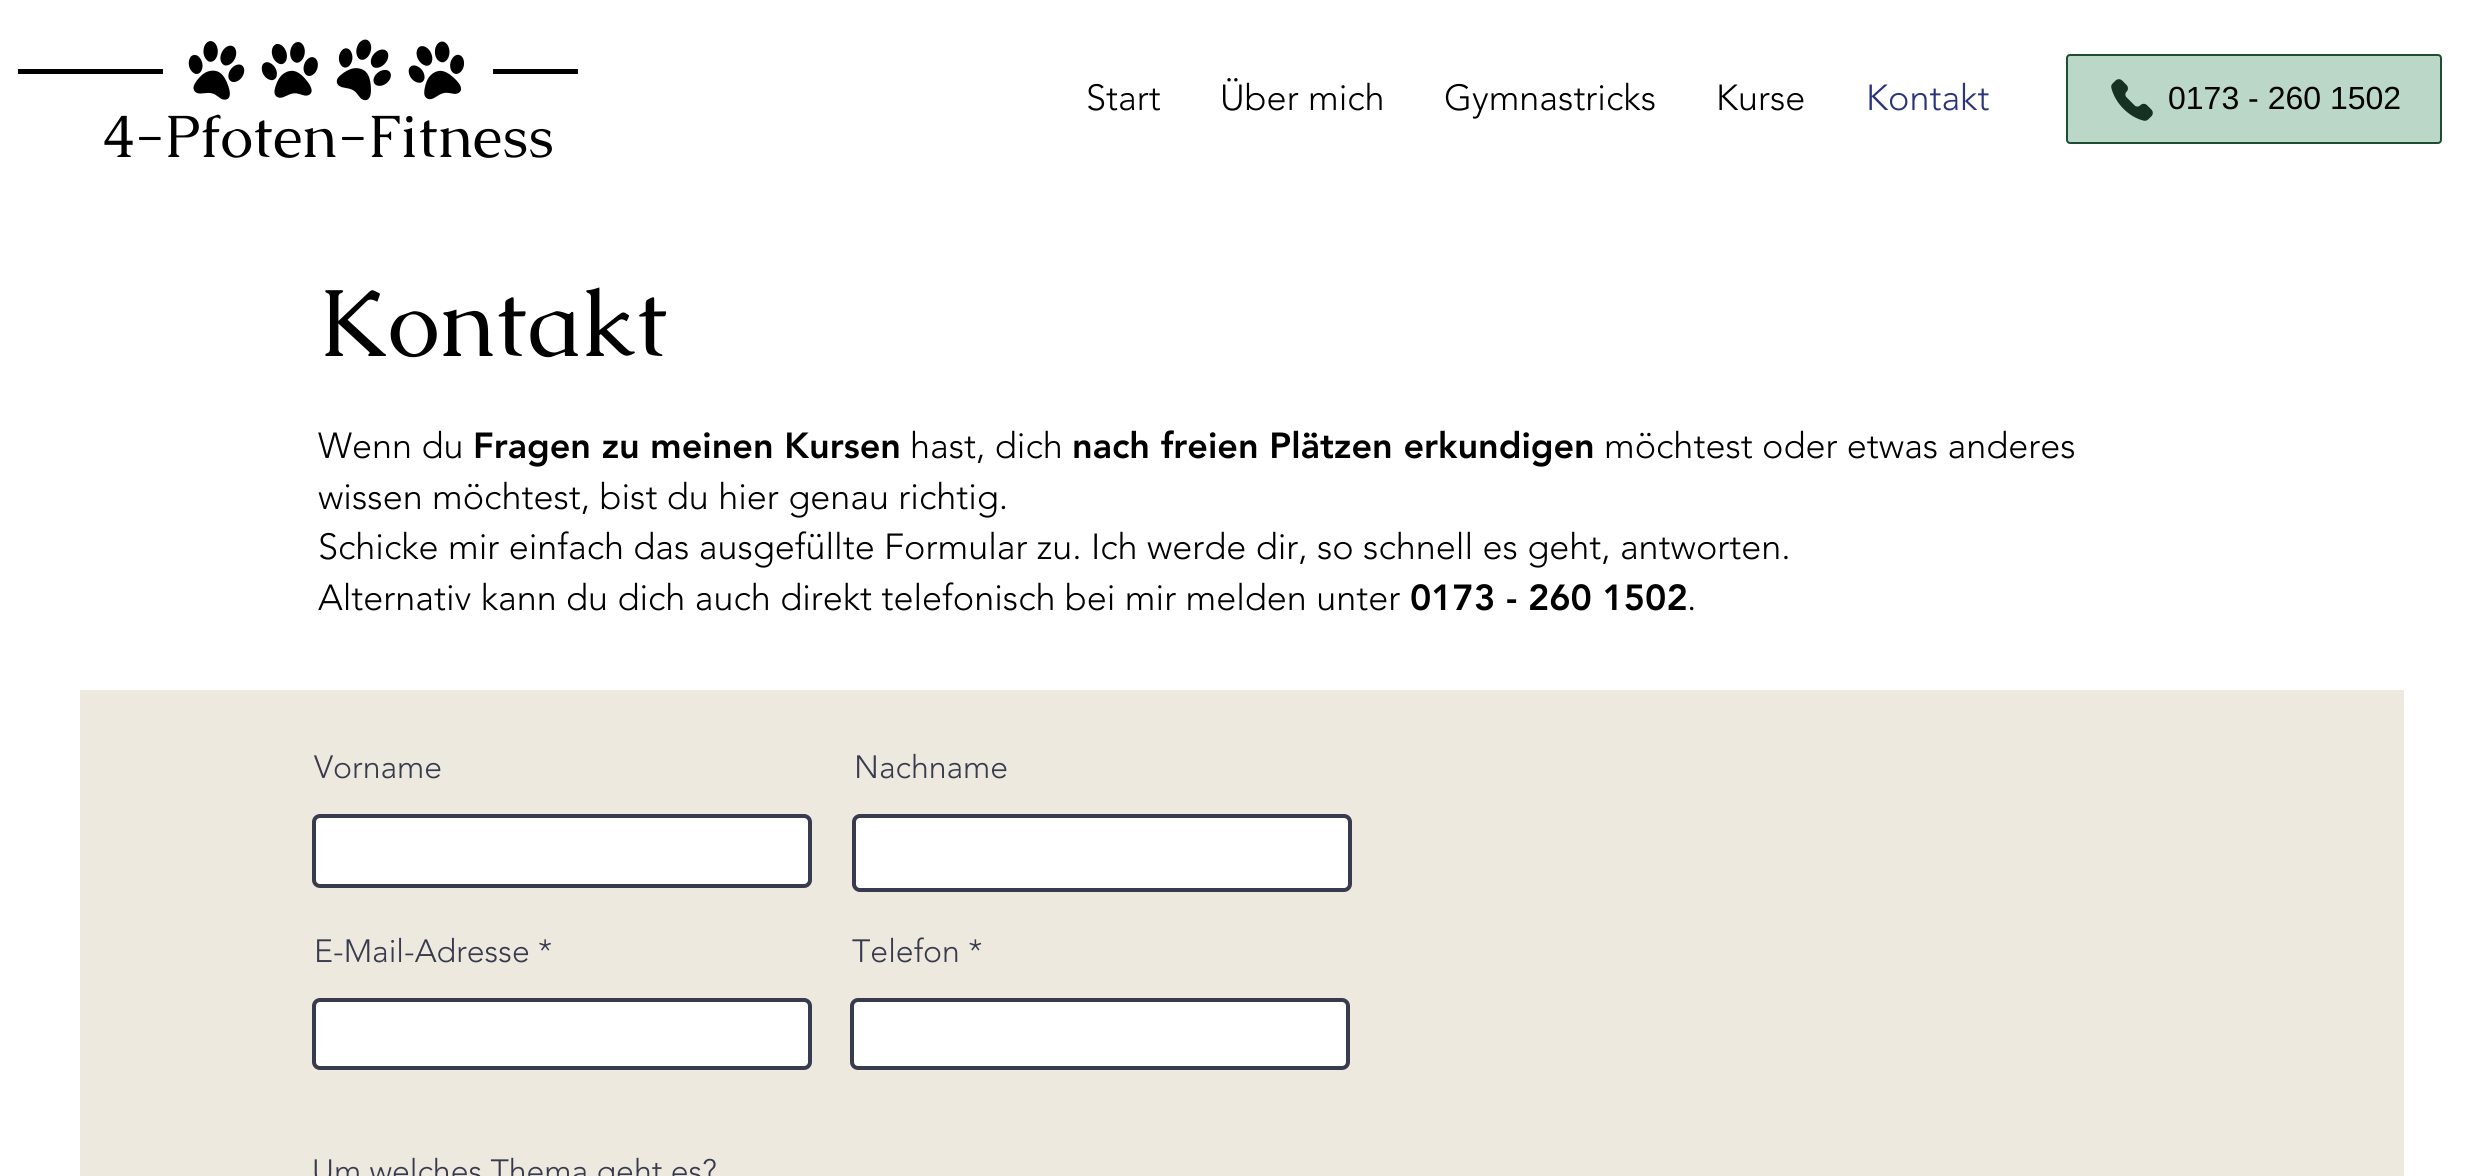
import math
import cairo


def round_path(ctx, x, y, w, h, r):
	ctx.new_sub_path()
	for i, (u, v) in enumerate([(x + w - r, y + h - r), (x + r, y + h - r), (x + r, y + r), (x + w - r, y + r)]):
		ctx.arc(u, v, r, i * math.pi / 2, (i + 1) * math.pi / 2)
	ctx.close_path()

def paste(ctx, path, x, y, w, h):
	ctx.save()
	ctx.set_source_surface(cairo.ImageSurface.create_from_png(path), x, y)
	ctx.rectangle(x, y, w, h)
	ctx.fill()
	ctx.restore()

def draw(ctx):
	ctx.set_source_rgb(1, 1, 1)
	ctx.paint()
	ctx.select_font_face('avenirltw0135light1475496 Light')
	ctx.set_font_size(36)
	ctx.set_source_rgb(0, 0, 0)
	for x, y, s in [
		(1086, 110, 'Start'),
		(1220, 110, 'Über mich'),
		(1444, 110, 'Gymnastricks'),
		(1716, 110, 'Kurse'),
	]:
		ctx.move_to(x, y)
		ctx.show_text(s)
	ctx.set_source_rgb(0.169, 0.2, 0.482)
	ctx.move_to(1866, 110)
	ctx.show_text('Kontakt')
	ctx.set_source_rgb(0.729, 0.843, 0.78)
	round_path(ctx, 2067, 55, 374, 88, 3)
	ctx.fill_preserve()
	ctx.set_source_rgb(0.122, 0.302, 0.196)
	ctx.stroke()
	paste(ctx, 'media/1.png', 2111, 79, 42, 42)
	ctx.select_font_face('Liberation Sans')
	ctx.set_font_size(32)
	ctx.set_source_rgb(0, 0, 0)
	ctx.move_to(2168, 109)
	ctx.show_text('0173 - 260 1502')
	paste(ctx, 'media/2.png', 18, 39, 560, 62)
	ctx.select_font_face('Caudex')
	ctx.set_font_size(60)
	ctx.move_to(102, 157)
	ctx.show_text('4-Pfoten-Fitness')
	ctx.set_font_size(96)
	ctx.move_to(318, 356)
	ctx.show_text('Kontakt')
	ctx.select_font_face('avenirltw0135light1475496 Light')
	ctx.set_font_size(36)
	ctx.move_to(318, 458)
	ctx.show_text('Wenn du')
	ctx.select_font_face('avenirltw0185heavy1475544 Black')
	ctx.move_to(473, 458)
	ctx.show_text('Fragen zu meinen Kursen')
	ctx.select_font_face('avenirltw0135light1475496 Light')
	ctx.move_to(910, 458)
	ctx.show_text('hast, dich')
	ctx.select_font_face('avenirltw0185heavy1475544 Black')
	ctx.move_to(1072, 458)
	ctx.show_text('nach freien Plätzen erkundigen')
	ctx.select_font_face('avenirltw0135light1475496 Light')
	for x, y, s in [
		(1604, 458, 'möchtest oder etwas anderes'),
		(318, 509, 'wissen möchtest, bist du hier genau richtig.'),
		(318, 559, 'Schicke mir einfach das ausgefüllte Formular zu. Ich werde dir, so schnell es geht, antworten.'),
		(318, 610, 'Alternativ kann du dich auch direkt telefonisch bei mir melden unter'),
	]:
		ctx.move_to(x, y)
		ctx.show_text(s)
	ctx.select_font_face('avenirltw0185heavy1475544 Black')
	ctx.move_to(1410, 610)
	ctx.show_text('0173 - 260 1502')
	ctx.select_font_face('avenirltw0135light1475496 Light')
	ctx.move_to(1687, 610)
	ctx.show_text('.')
	ctx.set_source_rgb(0.929, 0.914, 0.871)
	ctx.rectangle(80, 690, 2324, 486)
	ctx.fill()
	ctx.set_font_size(32)
	ctx.set_source_rgb(0.216, 0.231, 0.302)
	ctx.move_to(314, 778)
	ctx.show_text('Vorname')
	ctx.set_source_rgb(1, 1, 1)
	round_path(ctx, 314, 816, 496, 70, 6)
	ctx.fill_preserve()
	ctx.set_source_rgb(0.216, 0.231, 0.302)
	ctx.set_line_width(4)
	ctx.stroke()
	ctx.move_to(854, 778)
	ctx.show_text('Nachname')
	ctx.set_source_rgb(1, 1, 1)
	round_path(ctx, 854, 816, 496, 74, 6)
	ctx.fill_preserve()
	ctx.set_source_rgb(0.216, 0.231, 0.302)
	ctx.stroke()
	ctx.move_to(314, 962)
	ctx.show_text('E-Mail-Adresse *')
	ctx.set_source_rgb(1, 1, 1)
	round_path(ctx, 314, 1000, 496, 68, 6)
	ctx.fill_preserve()
	ctx.set_source_rgb(0.216, 0.231, 0.302)
	ctx.stroke()
	ctx.move_to(852, 962)
	ctx.show_text('Telefon *')
	ctx.set_source_rgb(1, 1, 1)
	round_path(ctx, 852, 1000, 496, 68, 6)
	ctx.fill_preserve()
	ctx.set_source_rgb(0.216, 0.231, 0.302)
	ctx.stroke()
	ctx.move_to(312, 1182)
	ctx.show_text('Um welches Thema geht es?')


surface = cairo.ImageSurface(cairo.FORMAT_RGB24, 2483, 1176)
ctx = cairo.Context(surface)
options = cairo.FontOptions()
options.set_hint_metrics(cairo.HINT_METRICS_OFF)
options.set_hint_style(cairo.HINT_STYLE_NONE)
ctx.set_font_options(options)
ctx.set_miter_limit(4)
draw(ctx)
surface.write_to_png('image.png')
